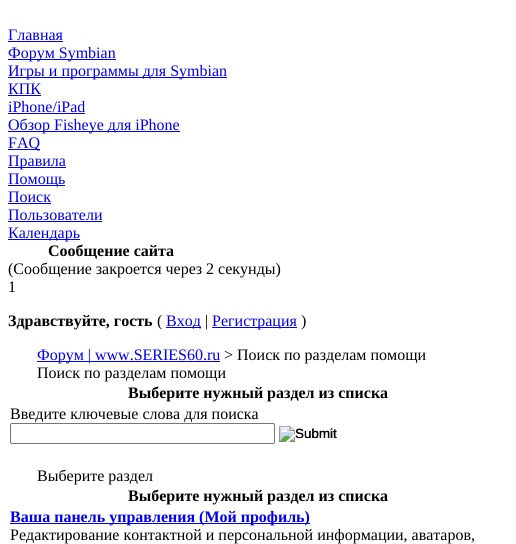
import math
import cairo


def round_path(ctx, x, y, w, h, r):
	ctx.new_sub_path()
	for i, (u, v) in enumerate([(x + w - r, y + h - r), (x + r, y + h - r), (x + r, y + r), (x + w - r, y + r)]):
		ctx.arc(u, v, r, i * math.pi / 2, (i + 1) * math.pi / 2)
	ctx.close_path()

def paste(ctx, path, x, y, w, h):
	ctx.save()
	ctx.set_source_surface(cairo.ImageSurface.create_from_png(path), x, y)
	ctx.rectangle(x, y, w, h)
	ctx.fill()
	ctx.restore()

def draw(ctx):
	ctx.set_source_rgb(1, 1, 1)
	ctx.paint()
	ctx.select_font_face('Liberation Serif')
	ctx.set_font_size(16)
	ctx.set_source_rgb(0, 0, 0.933)
	ctx.move_to(8, 40)
	ctx.show_text('Главная')
	ctx.rectangle(8, 41, 55, 1)
	ctx.fill()
	ctx.rectangle(8, 59, 108, 1)
	ctx.fill()
	ctx.move_to(8, 58)
	ctx.show_text('Форум Symbian')
	ctx.rectangle(8, 77, 219, 1)
	ctx.fill()
	ctx.move_to(8, 76)
	ctx.show_text('Игры и программы для Symbian')
	ctx.move_to(8, 94)
	ctx.show_text('КПК')
	ctx.rectangle(8, 95, 33, 1)
	ctx.fill()
	ctx.move_to(8, 112)
	ctx.show_text('iPhone/iPad')
	ctx.rectangle(8, 113, 77, 1)
	ctx.fill()
	ctx.rectangle(8, 131, 172, 1)
	ctx.fill()
	ctx.move_to(8, 130)
	ctx.show_text('Обзор Fisheye для iPhone')
	ctx.rectangle(8, 149, 32, 1)
	ctx.fill()
	ctx.move_to(8, 148)
	ctx.show_text('FAQ')
	ctx.rectangle(8, 167, 58, 1)
	ctx.fill()
	ctx.move_to(8, 166)
	ctx.show_text('Правила')
	ctx.rectangle(8, 185, 57, 1)
	ctx.fill()
	ctx.move_to(8, 184)
	ctx.show_text('Помощь')
	ctx.move_to(8, 202)
	ctx.show_text('Поиск')
	ctx.rectangle(8, 203, 43, 1)
	ctx.fill()
	ctx.move_to(8, 220)
	ctx.show_text('Пользователи')
	ctx.rectangle(8, 221, 94, 1)
	ctx.fill()
	ctx.rectangle(8, 239, 72, 1)
	ctx.fill()
	ctx.move_to(8, 238)
	ctx.show_text('Календарь')
	ctx.select_font_face('Liberation Serif', cairo.FONT_SLANT_NORMAL, cairo.FONT_WEIGHT_BOLD)
	ctx.set_source_rgb(0, 0, 0)
	ctx.move_to(48, 256)
	ctx.show_text('Сообщение сайта')
	ctx.select_font_face('Liberation Serif')
	ctx.move_to(8, 274)
	ctx.show_text('(Сообщение закроется через 2 секунды)')
	ctx.move_to(8, 292)
	ctx.show_text('1')
	ctx.select_font_face('Liberation Serif', cairo.FONT_SLANT_NORMAL, cairo.FONT_WEIGHT_BOLD)
	ctx.move_to(8, 326)
	ctx.show_text('Здравствуйте, гость')
	ctx.select_font_face('Liberation Serif')
	ctx.move_to(157, 326)
	ctx.show_text('(')
	ctx.set_source_rgb(0, 0, 0.933)
	ctx.rectangle(166, 327, 35, 1)
	ctx.fill()
	ctx.move_to(166, 326)
	ctx.show_text('Вход')
	ctx.set_source_rgb(0, 0, 0)
	ctx.move_to(205, 326)
	ctx.show_text('|')
	ctx.set_source_rgb(0, 0, 0.933)
	ctx.rectangle(212, 327, 85, 1)
	ctx.fill()
	ctx.move_to(212, 326)
	ctx.show_text('Регистрация')
	ctx.set_source_rgb(0, 0, 0)
	ctx.move_to(301, 326)
	ctx.show_text(')')
	ctx.set_source_rgb(0, 0, 0.933)
	ctx.rectangle(37, 361, 183, 1)
	ctx.fill()
	ctx.move_to(37, 360)
	ctx.show_text('Форум | www.SERIES60.ru')
	ctx.set_source_rgb(0, 0, 0)
	ctx.move_to(224, 360)
	ctx.show_text('> Поиск по разделам помощи')
	ctx.move_to(37, 378)
	ctx.show_text('Поиск по разделам помощи')
	ctx.select_font_face('Liberation Serif', cairo.FONT_SLANT_NORMAL, cairo.FONT_WEIGHT_BOLD)
	ctx.move_to(128, 398)
	ctx.show_text('Выберите нужный раздел из списка')
	ctx.select_font_face('Liberation Serif')
	ctx.move_to(10, 419)
	ctx.show_text('Введите ключевые слова для поиска')
	round_path(ctx, 10.5, 423.5, 264, 20, 1.5)
	ctx.set_source_rgb(0.463, 0.463, 0.463)
	ctx.set_line_width(1)
	ctx.stroke()
	paste(ctx, 'media/1.png', 279, 426, 57, 16)
	ctx.select_font_face('Liberation Sans')
	ctx.set_font_size(13.5)
	ctx.set_source_rgb(0, 0, 0)
	ctx.move_to(295, 438)
	ctx.show_text('Submit')
	ctx.select_font_face('Liberation Serif')
	ctx.set_font_size(16)
	ctx.move_to(37, 481)
	ctx.show_text('Выберите раздел')
	ctx.select_font_face('Liberation Serif', cairo.FONT_SLANT_NORMAL, cairo.FONT_WEIGHT_BOLD)
	ctx.move_to(128, 501)
	ctx.show_text('Выберите нужный раздел из списка')
	ctx.set_source_rgb(0, 0, 0.933)
	ctx.rectangle(10, 523, 300, 1)
	ctx.fill()
	ctx.move_to(10, 522)
	ctx.show_text('Ваша панель управления (Мой профиль)')
	ctx.select_font_face('Liberation Serif')
	ctx.set_source_rgb(0, 0, 0)
	ctx.move_to(10, 540)
	ctx.show_text('Редактирование контактной и персональной информации, аватаров,')


surface = cairo.ImageSurface(cairo.FORMAT_RGB24, 516, 544)
ctx = cairo.Context(surface)
options = cairo.FontOptions()
options.set_hint_metrics(cairo.HINT_METRICS_OFF)
options.set_hint_style(cairo.HINT_STYLE_NONE)
ctx.set_font_options(options)
ctx.set_miter_limit(4)
draw(ctx)
surface.write_to_png('image.png')
